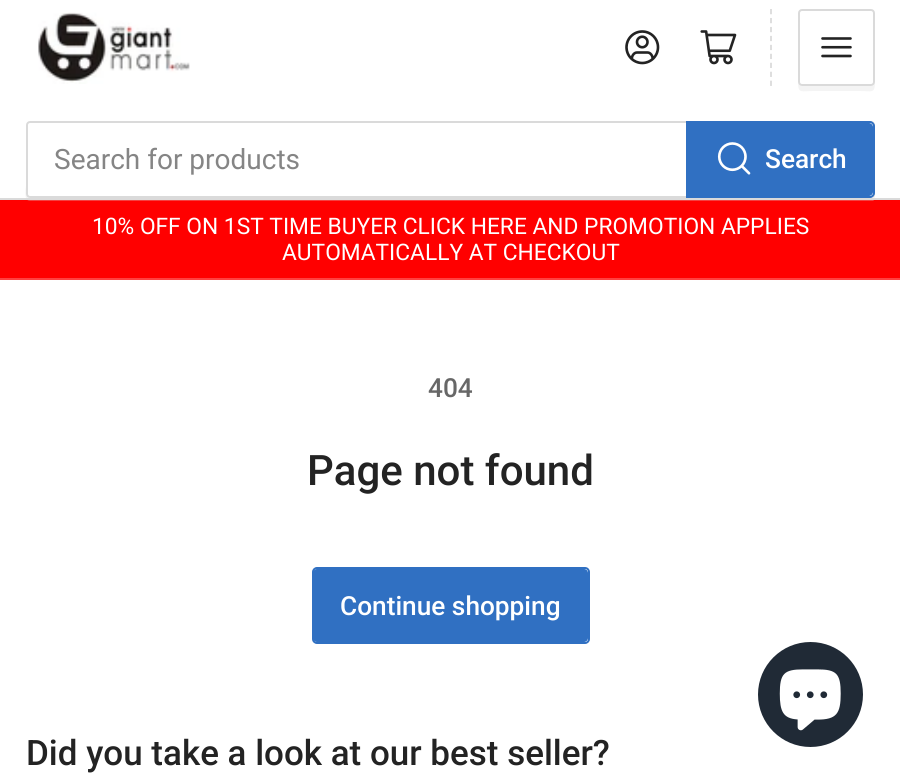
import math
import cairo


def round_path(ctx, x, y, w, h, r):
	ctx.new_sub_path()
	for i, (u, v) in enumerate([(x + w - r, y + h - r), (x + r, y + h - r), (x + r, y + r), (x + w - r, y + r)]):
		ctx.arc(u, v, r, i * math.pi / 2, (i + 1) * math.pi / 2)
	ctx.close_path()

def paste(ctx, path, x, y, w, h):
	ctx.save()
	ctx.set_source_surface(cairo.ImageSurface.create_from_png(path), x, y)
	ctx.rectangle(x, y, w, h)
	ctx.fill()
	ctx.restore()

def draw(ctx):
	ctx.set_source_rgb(1, 1, 1)
	ctx.paint()
	ctx.set_source_rgb(0.855, 0.855, 0.855)
	ctx.rectangle(0, 198, 900, 2)
	ctx.fill()
	paste(ctx, 'media/1.png', 38, 12, 152, 72)
	paste(ctx, 'media/2.png', 625, 30, 35, 35)
	paste(ctx, 'media/3.png', 700, 30, 37, 35)
	ctx.new_path()
	ctx.move_to(771, 9)
	ctx.line_to(771, 86)
	ctx.set_line_width(1.8)
	ctx.set_dash([5.25, 3.71])
	ctx.stroke()
	ctx.set_source_rgb(0.957, 0.957, 0.957)
	ctx.new_path()
	ctx.move_to(798, 82)
	ctx.curve_to(798, 94, 801, 91, 814, 91)
	ctx.line_to(860, 91)
	ctx.curve_to(872, 91, 875, 94, 875, 82)
	ctx.curve_to(875, 84, 873, 86, 872, 86)
	ctx.line_to(802, 86)
	ctx.curve_to(800, 86, 798, 84, 798, 82)
	ctx.close_path()
	ctx.fill()
	round_path(ctx, 799, 10, 75, 75, 3)
	ctx.set_source_rgb(0.855, 0.855, 0.855)
	ctx.set_line_width(2)
	ctx.set_dash([])
	ctx.stroke()
	paste(ctx, 'media/4.png', 821, 37, 31, 21)
	ctx.set_source_rgb(1, 0, 0)
	ctx.rectangle(0, 200, 900, 78)
	ctx.fill()
	ctx.set_source_rgba(0.855, 0.855, 0.855, 0.3)
	ctx.new_path()
	ctx.move_to(26, 127)
	ctx.line_to(26, 186)
	ctx.curve_to(26, 187, 23, 201, 30, 201)
	ctx.line_to(873, 201)
	ctx.curve_to(875, 200, 875, 197, 875, 194)
	ctx.curve_to(875, 196, 873, 198, 872, 198)
	ctx.line_to(30, 198)
	ctx.curve_to(28, 198, 26, 196, 26, 194)
	ctx.close_path()
	ctx.fill()
	ctx.set_source_rgb(1, 1, 1)
	round_path(ctx, 27, 122, 847, 75, 3)
	ctx.fill_preserve()
	ctx.set_source_rgb(0.855, 0.855, 0.855)
	ctx.stroke()
	ctx.select_font_face('Roboto')
	ctx.set_font_size(28)
	ctx.set_source_rgb(0.522, 0.522, 0.522)
	ctx.move_to(54, 169)
	ctx.show_text('Search for products')
	ctx.new_path()
	ctx.move_to(687, 122)
	ctx.line_to(870, 122)
	ctx.curve_to(872, 122, 874, 124, 874, 126)
	ctx.line_to(874, 193)
	ctx.curve_to(874, 195, 872, 197, 870, 197)
	ctx.line_to(687, 197)
	ctx.close_path()
	ctx.set_source_rgb(0.188, 0.439, 0.761)
	ctx.stroke()
	ctx.new_path()
	ctx.move_to(688, 123)
	ctx.line_to(869, 123)
	ctx.curve_to(871, 123, 873, 125, 873, 127)
	ctx.line_to(873, 192)
	ctx.curve_to(873, 194, 871, 196, 869, 196)
	ctx.line_to(688, 196)
	ctx.close_path()
	ctx.fill()
	paste(ctx, 'media/5.png', 717, 142, 34, 33)
	ctx.select_font_face('Roboto Medium')
	ctx.set_font_size(26.25)
	ctx.set_source_rgb(1, 1, 1)
	ctx.move_to(765, 168)
	ctx.show_text('Search')
	ctx.set_source_rgb(1, 0.251, 0.251)
	ctx.rectangle(0, 278, 900, 2)
	ctx.fill()
	ctx.select_font_face('Roboto')
	ctx.set_font_size(22.75)
	ctx.set_source_rgb(1, 1, 1)
	ctx.move_to(92, 234)
	ctx.show_text('10% OFF ON 1ST TIME BUYER CLICK HERE AND PROMOTION APPLIES')
	ctx.move_to(282, 260)
	ctx.show_text('AUTOMATICALLY AT CHECKOUT')
	ctx.select_font_face('Roboto Medium')
	ctx.set_font_size(26.25)
	ctx.set_source_rgb(0.404, 0.404, 0.404)
	ctx.move_to(428, 397)
	ctx.show_text('404')
	ctx.set_font_size(42)
	ctx.set_source_rgb(0.137, 0.137, 0.137)
	ctx.move_to(307, 485)
	ctx.show_text('Page not found')
	round_path(ctx, 313, 568, 276, 75, 4)
	ctx.set_source_rgb(0.188, 0.439, 0.761)
	ctx.stroke()
	round_path(ctx, 313, 569, 275, 73, 4)
	ctx.fill()
	ctx.set_font_size(26.25)
	ctx.set_source_rgb(1, 1, 1)
	ctx.move_to(340, 615)
	ctx.show_text('Continue shopping')
	ctx.set_font_size(35)
	ctx.set_source_rgb(0.137, 0.137, 0.137)
	ctx.move_to(26, 765)
	ctx.show_text('Did you take a look at our best seller?')
	ctx.set_source_rgb(0.125, 0.165, 0.212)
	ctx.new_path()
	ctx.arc(810.5, 694.5, 52.5, 0, 2 * math.pi)
	ctx.fill()
	paste(ctx, 'media/6.png', 779, 669, 62, 62)


surface = cairo.ImageSurface(cairo.FORMAT_RGB24, 900, 784)
ctx = cairo.Context(surface)
options = cairo.FontOptions()
options.set_hint_metrics(cairo.HINT_METRICS_OFF)
options.set_hint_style(cairo.HINT_STYLE_NONE)
ctx.set_font_options(options)
ctx.set_miter_limit(4)
draw(ctx)
surface.write_to_png('image.png')
